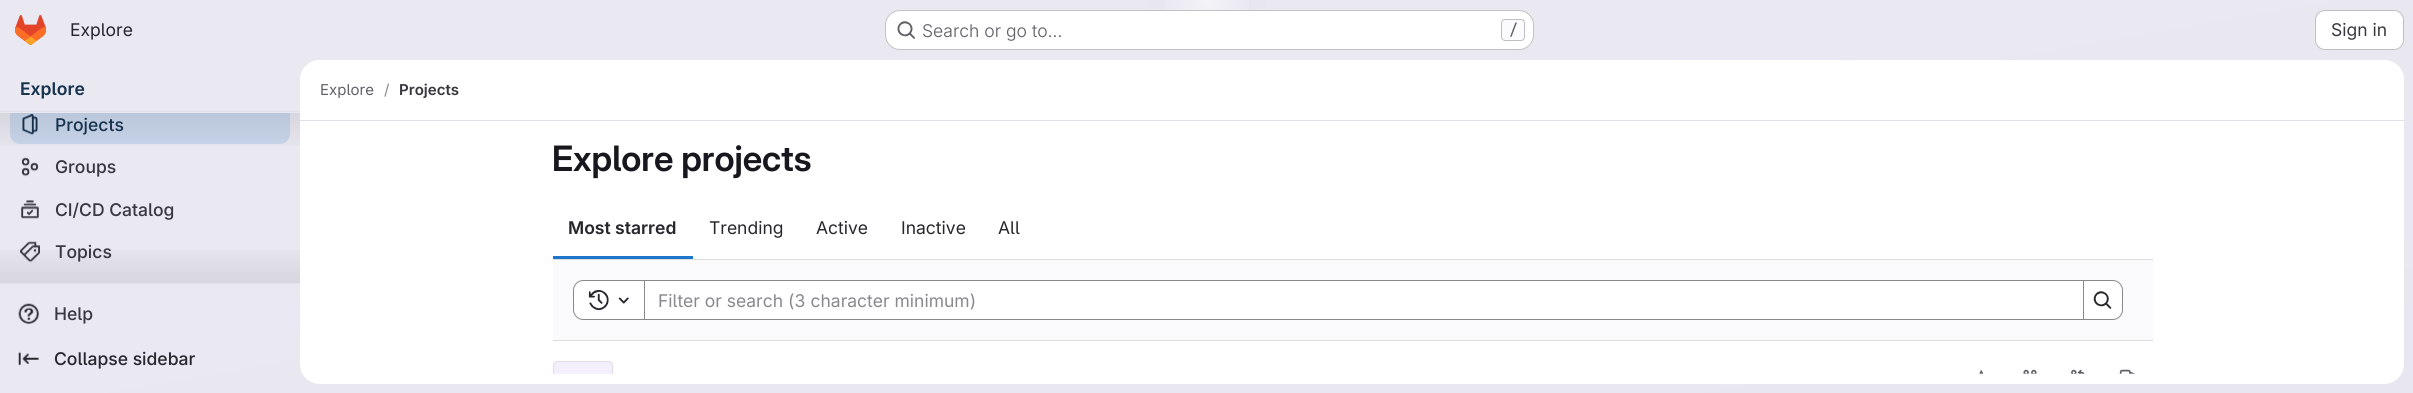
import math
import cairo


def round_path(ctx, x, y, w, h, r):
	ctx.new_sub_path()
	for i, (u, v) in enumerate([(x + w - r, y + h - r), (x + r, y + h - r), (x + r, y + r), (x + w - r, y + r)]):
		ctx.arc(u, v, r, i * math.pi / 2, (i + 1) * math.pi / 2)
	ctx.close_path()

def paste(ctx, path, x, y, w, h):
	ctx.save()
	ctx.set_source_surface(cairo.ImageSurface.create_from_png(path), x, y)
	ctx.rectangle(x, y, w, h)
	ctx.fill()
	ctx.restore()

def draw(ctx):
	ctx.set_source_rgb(1, 1, 1)
	ctx.paint()
	gradient = cairo.LinearGradient(1277, 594, 1137, -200)
	gradient.add_color_stop_rgba(0, 0.91, 0.902, 0.941, 1)
	gradient.add_color_stop_rgba(0.7, 0.918, 0.914, 0.949, 1)
	ctx.set_source(gradient)
	ctx.rectangle(0, 0, 2413, 393)
	ctx.fill()
	gradient = cairo.RadialGradient(0, 0, 0, 0, 0, 1)
	gradient.set_matrix(cairo.Matrix(1 / 1207, 0, 0, 1 / 394, -1 * 1207 / 1207, -1 * 0 / 394))
	gradient.add_color_stop_rgba(0, 0.894, 0.886, 0.929, 1)
	gradient.add_color_stop_rgba(0.07, 0.894, 0.886, 0.929, 0)
	ctx.set_source(gradient)
	ctx.rectangle(1147, 0, 120, 10)
	ctx.fill()
	gradient = cairo.RadialGradient(0, 0, 0, 0, 0, 1)
	gradient.set_matrix(cairo.Matrix(1 / 1207, 0, 0, 1 / 394, -1 * 1207 / 1207, -1 * 0 / 394))
	gradient.add_color_stop_rgba(0, 0.894, 0.886, 0.925, 1)
	gradient.add_color_stop_rgba(0.05, 0.894, 0.886, 0.925, 0)
	ctx.set_source(gradient)
	ctx.rectangle(1191, 0, 32, 1)
	ctx.fill()
	gradient = cairo.RadialGradient(1207, 0, 0, 1207, 0, 1269)
	gradient.add_color_stop_rgba(0, 1, 1, 1, 0.6)
	gradient.add_color_stop_rgba(0.04, 1, 1, 1, 0)
	ctx.set_source(gradient)
	ctx.rectangle(1165, 0, 84, 10)
	ctx.fill()
	paste(ctx, 'media/1.png', 15, 15, 31, 30)
	ctx.select_font_face('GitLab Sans')
	ctx.set_font_size(17.5)
	ctx.set_source_rgb(0.157, 0.153, 0.176)
	ctx.move_to(70, 36)
	ctx.show_text('Explore')
	ctx.set_source_rgb(1, 1, 1)
	round_path(ctx, 885, 10, 649, 40, 15)
	ctx.fill()
	round_path(ctx, 885.5, 10.5, 648, 39, 14.5)
	ctx.set_source_rgba(0.02, 0.02, 0.024, 0.24)
	ctx.set_line_width(1)
	ctx.stroke()
	paste(ctx, 'media/2.png', 897, 21, 18, 18)
	ctx.select_font_face('GitLab Sans Light')
	ctx.set_source_rgb(0.384, 0.38, 0.408)
	ctx.move_to(922, 37)
	ctx.show_text('Search or go to…')
	ctx.set_source_rgb(0.984, 0.98, 0.992)
	round_path(ctx, 1501.5, 19.5, 23, 21, 3.5)
	ctx.fill_preserve()
	ctx.set_source_rgb(0.749, 0.749, 0.765)
	ctx.stroke()
	ctx.select_font_face('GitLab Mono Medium')
	ctx.set_font_size(15)
	ctx.set_source_rgb(0.384, 0.38, 0.408)
	ctx.move_to(1509, 35)
	ctx.show_text('/')
	ctx.set_source_rgb(1, 1, 1)
	round_path(ctx, 2315.5, 10.5, 88, 39, 9.5)
	ctx.fill_preserve()
	ctx.set_source_rgb(0.749, 0.749, 0.765)
	ctx.stroke()
	ctx.select_font_face('GitLab Sans')
	ctx.set_font_size(17.5)
	ctx.set_source_rgb(0.227, 0.22, 0.247)
	ctx.move_to(2331, 36)
	ctx.show_text('Sign in')
	ctx.select_font_face('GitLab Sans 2 SemiBold')
	ctx.set_source_rgb(0.094, 0.2, 0.306)
	ctx.move_to(20, 95)
	ctx.show_text('Explore')
	ctx.set_source_rgb(0.882, 0.875, 0.925)
	ctx.rectangle(0, 111, 300, 1)
	ctx.fill()
	ctx.rectangle(0, 283, 300, 1)
	ctx.fill()
	ctx.save()
	ctx.rectangle(0, 113, 300, 170)
	ctx.clip()
	ctx.set_source_rgb(0.792, 0.843, 0.925)
	round_path(ctx, 10, 104, 280, 40, 10)
	ctx.fill()
	ctx.restore()
	paste(ctx, 'media/3.png', 22, 114, 16, 21)
	gradient = cairo.LinearGradient(150, 112, 150, 158)
	gradient.add_color_stop_rgba(0, 0.02, 0.02, 0.024, 0.08)
	gradient.add_color_stop_rgba(1, 0.02, 0.02, 0.024, 0)
	ctx.set_source(gradient)
	ctx.rectangle(0, 113, 300, 33)
	ctx.fill()
	ctx.select_font_face('GitLab Sans Medium')
	ctx.set_source_rgb(0.094, 0.2, 0.306)
	ctx.move_to(55, 131)
	ctx.show_text('Projects')
	paste(ctx, 'media/4.png', 21, 157, 18, 20)
	ctx.set_source_rgb(0.227, 0.22, 0.247)
	ctx.move_to(55, 173)
	ctx.show_text('Groups')
	paste(ctx, 'media/5.png', 21, 200, 18, 19)
	ctx.move_to(55, 216)
	ctx.show_text('CI/CD Catalog')
	paste(ctx, 'media/6.png', 20, 241, 20, 21)
	ctx.move_to(55, 258)
	ctx.show_text('Topics')
	gradient = cairo.LinearGradient(150, 238, 150, 283)
	gradient.add_color_stop_rgba(0, 0.02, 0.02, 0.024, 0)
	gradient.add_color_stop_rgba(1, 0.02, 0.02, 0.024, 0.08)
	ctx.set_source(gradient)
	ctx.rectangle(0, 250, 300, 33)
	ctx.fill()
	paste(ctx, 'media/7.png', 18, 303, 21, 21)
	ctx.set_source_rgb(0.227, 0.22, 0.247)
	ctx.move_to(54, 320)
	ctx.show_text('Help')
	paste(ctx, 'media/8.png', 18, 351, 21, 15)
	ctx.set_source_rgb(0.157, 0.153, 0.176)
	ctx.move_to(54, 365)
	ctx.show_text('Collapse sidebar')
	ctx.set_source_rgb(1, 1, 1)
	round_path(ctx, 300, 60, 2104, 324, 20)
	ctx.fill()
	ctx.new_path()
	ctx.move_to(320, 60)
	ctx.line_to(2384, 60)
	ctx.curve_to(2395, 60, 2404, 69, 2404, 80)
	ctx.line_to(2404, 121)
	ctx.line_to(300, 121)
	ctx.line_to(300, 80)
	ctx.curve_to(300, 69, 309, 60, 320, 60)
	ctx.close_path()
	ctx.fill()
	ctx.set_source_rgb(0.882, 0.875, 0.925)
	ctx.rectangle(300, 120, 2104, 1)
	ctx.fill()
	ctx.select_font_face('GitLab Sans')
	ctx.set_font_size(15)
	ctx.set_source_rgb(0.384, 0.38, 0.408)
	ctx.move_to(320, 95)
	ctx.show_text('Explore')
	ctx.set_source_rgb(0.537, 0.533, 0.553)
	ctx.move_to(384, 95)
	ctx.show_text('/')
	ctx.select_font_face('GitLab Sans 2 SemiBold')
	ctx.set_source_rgb(0.227, 0.22, 0.247)
	ctx.move_to(399, 95)
	ctx.show_text('Projects')
	ctx.select_font_face('GitLab Sans SemiBold')
	ctx.set_font_size(35)
	ctx.set_source_rgb(0.094, 0.09, 0.114)
	ctx.move_to(552, 171)
	ctx.show_text('Explore projects')
	ctx.select_font_face('GitLab Sans 2 SemiBold')
	ctx.set_font_size(17.5)
	ctx.set_source_rgb(0.157, 0.153, 0.176)
	ctx.move_to(568, 234)
	ctx.show_text('Most starred')
	ctx.set_source_rgb(0.122, 0.459, 0.796)
	ctx.rectangle(553, 256, 140, 3)
	ctx.fill()
	ctx.select_font_face('GitLab Sans')
	ctx.set_source_rgb(0.157, 0.153, 0.176)
	for x, y, s in [
		(709, 234, 'Trending'),
		(816, 234, 'Active'),
		(901, 234, 'Inactive'),
		(998, 234, 'All'),
	]:
		ctx.move_to(x, y)
		ctx.show_text(s)
	ctx.set_source_rgb(0.984, 0.98, 0.992)
	ctx.rectangle(553, 260, 1600, 80)
	ctx.fill()
	ctx.set_source_rgb(0.863, 0.863, 0.871)
	ctx.rectangle(553, 259, 1600, 1)
	ctx.rectangle(553, 340, 1600, 1)
	ctx.fill()
	ctx.set_source_rgb(1, 1, 1)
	ctx.rectangle(644.5, 280.5, 1439, 39)
	ctx.fill_preserve()
	ctx.set_source_rgb(0.537, 0.533, 0.553)
	ctx.stroke()
	ctx.set_source_rgb(1, 1, 1)
	ctx.new_path()
	ctx.move_to(583, 280.5)
	ctx.line_to(644.5, 280.5)
	ctx.line_to(644.5, 319.5)
	ctx.line_to(583, 319.5)
	ctx.curve_to(578, 319.5, 573.5, 315, 573.5, 310)
	ctx.line_to(573.5, 290)
	ctx.curve_to(573.5, 285, 578, 280.5, 583, 280.5)
	ctx.close_path()
	ctx.fill_preserve()
	ctx.set_source_rgb(0.537, 0.533, 0.553)
	ctx.stroke()
	paste(ctx, 'media/9.png', 588, 290, 21, 20)
	paste(ctx, 'media/10.png', 618, 297, 11, 7)
	ctx.move_to(658, 307)
	ctx.show_text('Filter or search (3 character minimum)')
	ctx.set_source_rgb(1, 1, 1)
	ctx.new_path()
	ctx.move_to(2083.5, 280.5)
	ctx.line_to(2113, 280.5)
	ctx.curve_to(2118, 280.5, 2122.5, 285, 2122.5, 290)
	ctx.line_to(2122.5, 310)
	ctx.curve_to(2122.5, 315, 2118, 319.5, 2113, 319.5)
	ctx.line_to(2083.5, 319.5)
	ctx.close_path()
	ctx.fill_preserve()
	ctx.set_source_rgb(0.537, 0.533, 0.553)
	ctx.stroke()
	paste(ctx, 'media/11.png', 2093, 291, 19, 18)
	ctx.set_source_rgb(0.953, 0.937, 0.988)
	ctx.new_path()
	ctx.move_to(558, 361)
	ctx.line_to(608, 361)
	ctx.curve_to(611, 361, 613, 363, 613, 366)
	ctx.line_to(613, 374)
	ctx.line_to(553, 374)
	ctx.line_to(553, 366)
	ctx.curve_to(553, 363, 555, 361, 558, 361)
	ctx.close_path()
	ctx.fill()
	ctx.save()
	ctx.rectangle(300, 121, 2104, 253)
	ctx.clip()
	ctx.set_source_rgba(0.02, 0.02, 0.024, 0.08)
	ctx.new_path()
	ctx.move_to(558, 361)
	ctx.curve_to(555, 361, 553, 363, 553, 366)
	ctx.line_to(553, 384)
	ctx.line_to(554, 384)
	ctx.line_to(554, 366)
	ctx.curve_to(554, 364, 556, 362, 558, 362)
	ctx.line_to(608, 362)
	ctx.curve_to(610, 362, 612, 364, 612, 366)
	ctx.line_to(612, 384)
	ctx.line_to(613, 384)
	ctx.line_to(613, 366)
	ctx.curve_to(613, 363, 611, 361, 608, 361)
	ctx.close_path()
	ctx.fill()
	ctx.restore()
	paste(ctx, 'media/12.png', 1979, 370, 5, 4)
	paste(ctx, 'media/13.png', 2023, 369, 14, 5)
	paste(ctx, 'media/14.png', 2071, 369, 14, 5)
	paste(ctx, 'media/15.png', 2119, 369, 16, 5)


surface = cairo.ImageSurface(cairo.FORMAT_RGB24, 2413, 393)
ctx = cairo.Context(surface)
options = cairo.FontOptions()
options.set_hint_metrics(cairo.HINT_METRICS_OFF)
options.set_hint_style(cairo.HINT_STYLE_NONE)
ctx.set_font_options(options)
ctx.set_miter_limit(4)
draw(ctx)
surface.write_to_png('image.png')
